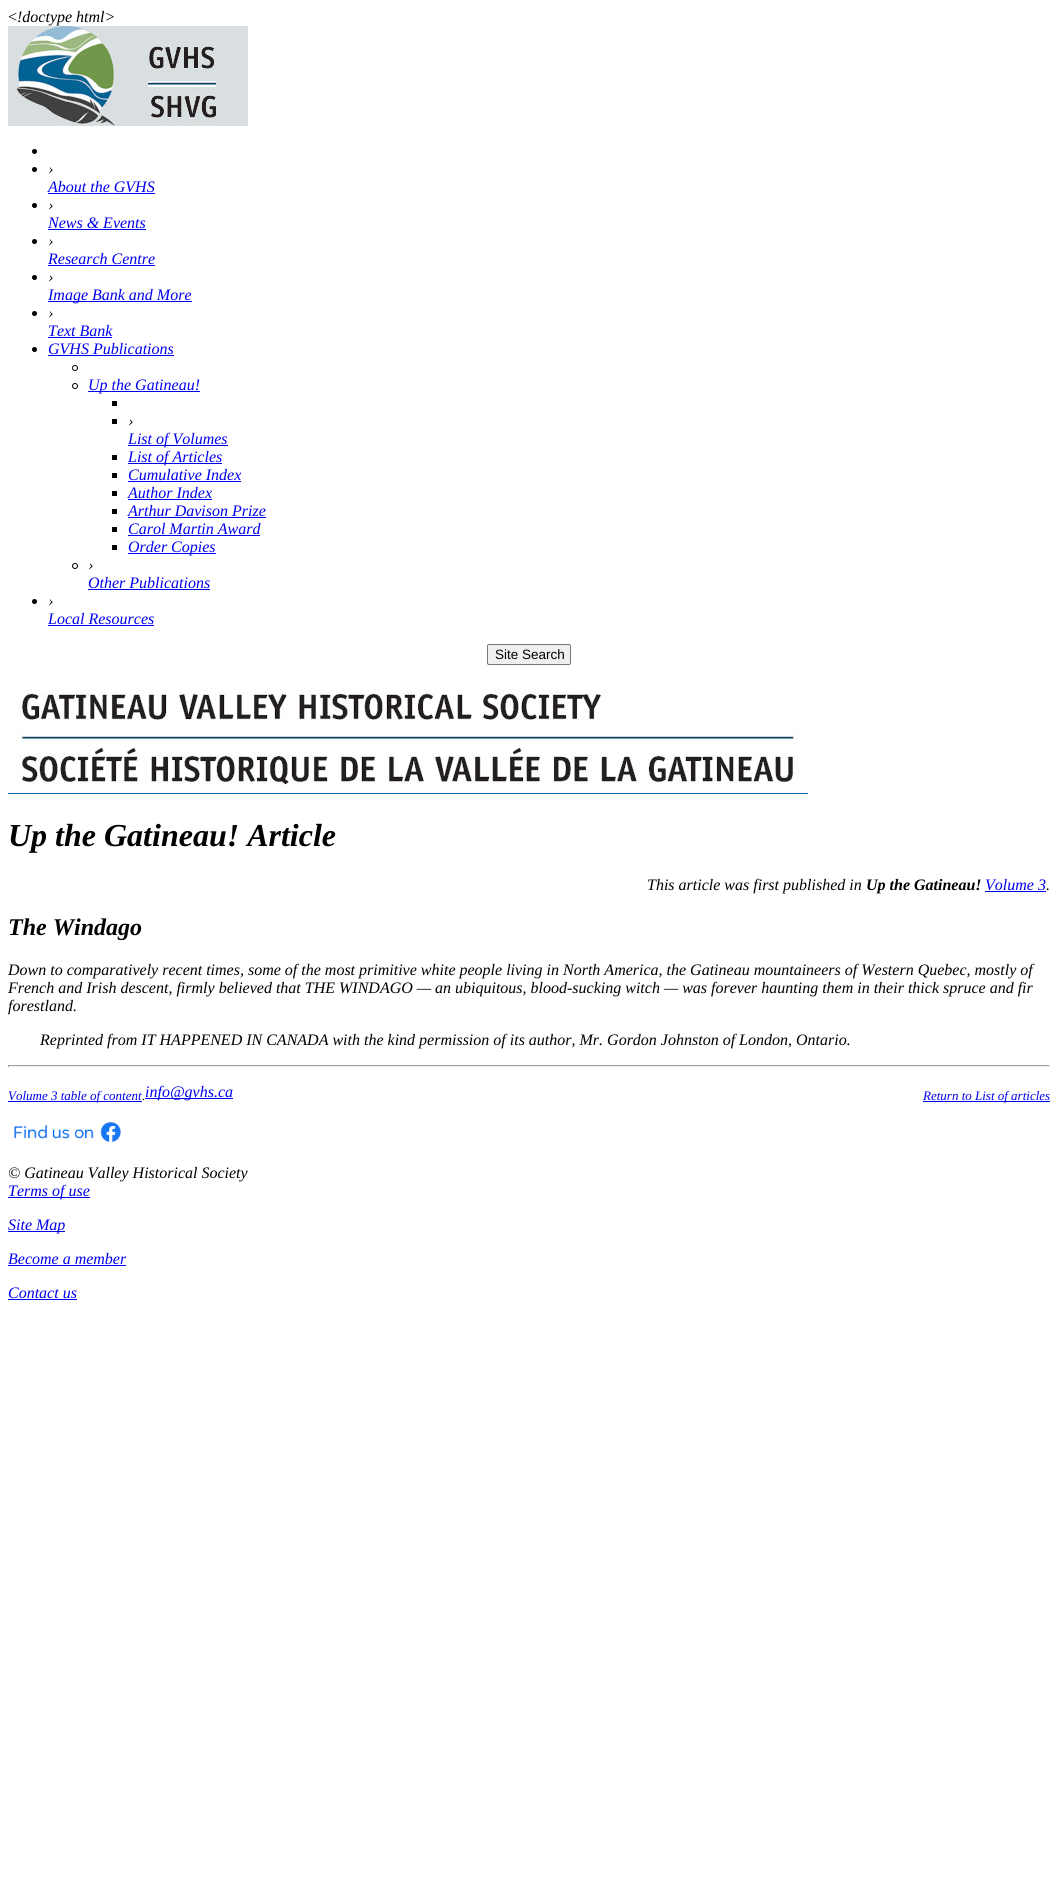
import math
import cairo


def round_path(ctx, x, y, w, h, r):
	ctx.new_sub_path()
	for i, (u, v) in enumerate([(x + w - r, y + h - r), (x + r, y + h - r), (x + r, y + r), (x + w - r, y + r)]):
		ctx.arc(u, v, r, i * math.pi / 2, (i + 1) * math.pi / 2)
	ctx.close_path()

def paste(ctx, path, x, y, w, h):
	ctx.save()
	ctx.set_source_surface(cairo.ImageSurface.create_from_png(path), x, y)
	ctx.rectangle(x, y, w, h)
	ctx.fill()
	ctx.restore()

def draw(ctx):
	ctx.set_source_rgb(1, 1, 1)
	ctx.paint()
	ctx.select_font_face('Liberation Serif', cairo.FONT_SLANT_ITALIC)
	ctx.set_font_size(16)
	ctx.set_source_rgb(0, 0, 0)
	ctx.move_to(17, 22)
	ctx.show_text('!doctype html>')
	paste(ctx, 'media/1.png', 8, 26, 240, 100)
	ctx.arc(34.5, 151.5, 2.5, 0, 2 * math.pi)
	ctx.fill()
	ctx.arc(34.5, 169.5, 2.5, 0, 2 * math.pi)
	ctx.fill()
	ctx.move_to(48, 174)
	ctx.show_text('›')
	ctx.set_source_rgb(0, 0, 0.933)
	ctx.move_to(48, 192)
	ctx.show_text('About the GVHS')
	ctx.rectangle(48, 193, 107, 1)
	ctx.fill()
	ctx.set_source_rgb(0, 0, 0)
	ctx.arc(34.5, 205.5, 2.5, 0, 2 * math.pi)
	ctx.fill()
	ctx.move_to(48, 210)
	ctx.show_text('›')
	ctx.set_source_rgb(0, 0, 0.933)
	ctx.move_to(48, 228)
	ctx.show_text('News & Events')
	ctx.rectangle(48, 229, 98, 1)
	ctx.fill()
	ctx.set_source_rgb(0, 0, 0)
	ctx.arc(34.5, 241.5, 2.5, 0, 2 * math.pi)
	ctx.fill()
	ctx.move_to(48, 246)
	ctx.show_text('›')
	ctx.set_source_rgb(0, 0, 0.933)
	ctx.move_to(48, 264)
	ctx.show_text('Research Centre')
	ctx.rectangle(48, 265, 107, 1)
	ctx.fill()
	ctx.set_source_rgb(0, 0, 0)
	ctx.arc(34.5, 277.5, 2.5, 0, 2 * math.pi)
	ctx.fill()
	ctx.move_to(48, 282)
	ctx.show_text('›')
	ctx.set_source_rgb(0, 0, 0.933)
	ctx.rectangle(48, 301, 144, 1)
	ctx.fill()
	ctx.move_to(48, 300)
	ctx.show_text('Image Bank and More')
	ctx.set_source_rgb(0, 0, 0)
	ctx.new_path()
	ctx.arc(34.5, 313.5, 2.5, 0, 2 * math.pi)
	ctx.fill()
	ctx.move_to(48, 318)
	ctx.show_text('›')
	ctx.set_source_rgb(0, 0, 0.933)
	ctx.move_to(48, 336)
	ctx.show_text('Text Bank')
	ctx.rectangle(48, 337, 64, 1)
	ctx.fill()
	ctx.set_source_rgb(0, 0, 0)
	ctx.arc(34.5, 349.5, 2.5, 0, 2 * math.pi)
	ctx.fill()
	ctx.set_source_rgb(0, 0, 0.933)
	ctx.move_to(48, 354)
	ctx.show_text('GVHS Publications')
	ctx.rectangle(48, 355, 126, 1)
	ctx.fill()
	ctx.arc(75, 368, 2.5, 0, 2 * math.pi)
	ctx.set_source_rgb(0, 0, 0)
	ctx.set_line_width(1)
	ctx.stroke()
	ctx.arc(75, 386, 2.5, 0, 2 * math.pi)
	ctx.stroke()
	ctx.set_source_rgb(0, 0, 0.933)
	ctx.rectangle(88, 391, 112, 1)
	ctx.fill()
	ctx.move_to(88, 390)
	ctx.show_text('Up the Gatineau!')
	ctx.set_source_rgb(0, 0, 0)
	ctx.rectangle(112, 401, 5, 5)
	ctx.fill()
	ctx.rectangle(112, 419, 5, 5)
	ctx.fill()
	ctx.move_to(128, 426)
	ctx.show_text('›')
	ctx.set_source_rgb(0, 0, 0.933)
	ctx.rectangle(128, 445, 100, 1)
	ctx.fill()
	ctx.move_to(128, 444)
	ctx.show_text('List of Volumes')
	ctx.set_source_rgb(0, 0, 0)
	ctx.rectangle(112, 455, 5, 5)
	ctx.fill()
	ctx.set_source_rgb(0, 0, 0.933)
	ctx.rectangle(128, 463, 94, 1)
	ctx.fill()
	ctx.move_to(128, 462)
	ctx.show_text('List of Articles')
	ctx.set_source_rgb(0, 0, 0)
	ctx.rectangle(112, 473, 5, 5)
	ctx.fill()
	ctx.set_source_rgb(0, 0, 0.933)
	ctx.move_to(128, 480)
	ctx.show_text('Cumulative Index')
	ctx.rectangle(128, 481, 113, 1)
	ctx.fill()
	ctx.set_source_rgb(0, 0, 0)
	ctx.rectangle(112, 491, 5, 5)
	ctx.fill()
	ctx.set_source_rgb(0, 0, 0.933)
	ctx.move_to(128, 498)
	ctx.show_text('Author Index')
	ctx.rectangle(128, 499, 84, 1)
	ctx.fill()
	ctx.set_source_rgb(0, 0, 0)
	ctx.rectangle(112, 509, 5, 5)
	ctx.fill()
	ctx.set_source_rgb(0, 0, 0.933)
	ctx.move_to(128, 516)
	ctx.show_text('Arthur Davison Prize')
	ctx.rectangle(128, 517, 138, 1)
	ctx.fill()
	ctx.set_source_rgb(0, 0, 0)
	ctx.rectangle(112, 527, 5, 5)
	ctx.fill()
	ctx.set_source_rgb(0, 0, 0.933)
	ctx.move_to(128, 534)
	ctx.show_text('Carol Martin Award')
	ctx.rectangle(128, 535, 132, 1)
	ctx.fill()
	ctx.set_source_rgb(0, 0, 0)
	ctx.rectangle(112, 545, 5, 5)
	ctx.fill()
	ctx.set_source_rgb(0, 0, 0.933)
	ctx.rectangle(128, 553, 88, 1)
	ctx.fill()
	ctx.move_to(128, 552)
	ctx.show_text('Order Copies')
	ctx.new_path()
	ctx.arc(75, 566, 2.5, 0, 2 * math.pi)
	ctx.set_source_rgb(0, 0, 0)
	ctx.stroke()
	ctx.move_to(88, 570)
	ctx.show_text('›')
	ctx.set_source_rgb(0, 0, 0.933)
	ctx.move_to(88, 588)
	ctx.show_text('Other Publications')
	ctx.rectangle(88, 589, 122, 1)
	ctx.fill()
	ctx.set_source_rgb(0, 0, 0)
	ctx.arc(34.5, 601.5, 2.5, 0, 2 * math.pi)
	ctx.fill()
	ctx.move_to(48, 606)
	ctx.show_text('›')
	ctx.set_source_rgb(0, 0, 0.933)
	ctx.move_to(48, 624)
	ctx.show_text('Local Resources')
	ctx.rectangle(48, 625, 106, 1)
	ctx.fill()
	ctx.set_source_rgb(0.937, 0.937, 0.937)
	round_path(ctx, 487.5, 644.5, 83, 20, 1.5)
	ctx.fill_preserve()
	ctx.set_source_rgb(0.463, 0.463, 0.463)
	ctx.stroke()
	ctx.select_font_face('Liberation Sans')
	ctx.set_font_size(13.5)
	ctx.set_source_rgb(0, 0, 0)
	ctx.move_to(495, 659)
	ctx.show_text('Site Search')
	paste(ctx, 'media/2.png', 8, 689, 800, 105)
	ctx.select_font_face('Liberation Serif', cairo.FONT_SLANT_ITALIC, cairo.FONT_WEIGHT_BOLD)
	ctx.set_font_size(32)
	ctx.move_to(8, 846)
	ctx.show_text('Up the Gatineau! Article')
	ctx.select_font_face('Liberation Serif', cairo.FONT_SLANT_ITALIC)
	ctx.set_font_size(16)
	ctx.move_to(647, 890)
	ctx.show_text('This article was first published in')
	ctx.select_font_face('Liberation Serif', cairo.FONT_SLANT_ITALIC, cairo.FONT_WEIGHT_BOLD)
	ctx.move_to(866, 890)
	ctx.show_text('Up the Gatineau!')
	ctx.select_font_face('Liberation Serif', cairo.FONT_SLANT_ITALIC)
	ctx.set_source_rgb(0, 0, 0.933)
	ctx.move_to(985, 890)
	ctx.show_text('Volume 3')
	ctx.rectangle(985, 891, 61, 1)
	ctx.fill()
	ctx.set_source_rgb(0, 0, 0)
	ctx.move_to(1046, 890)
	ctx.show_text('.')
	ctx.select_font_face('Liberation Serif', cairo.FONT_SLANT_ITALIC, cairo.FONT_WEIGHT_BOLD)
	ctx.set_font_size(24)
	ctx.move_to(8, 935)
	ctx.show_text('The Windago')
	ctx.select_font_face('Liberation Serif', cairo.FONT_SLANT_ITALIC)
	ctx.set_font_size(16)
	for x, y, s in [
		(8, 975, 'Down to comparatively recent times, some of the most primitive white people living in North America, the Gatineau mountaineers of Western Quebec, mostly of'),
		(8, 993, 'French and Irish descent, firmly believed that THE WINDAGO — an ubiquitous, blood-sucking witch — was forever haunting them in their thick spruce and fir'),
		(8, 1011, 'forestland.'),
		(40, 1045, 'Reprinted from IT HAPPENED IN CANADA with the kind permission of its author, Mr. Gordon Johnston of London, Ontario.'),
	]:
		ctx.move_to(x, y)
		ctx.show_text(s)
	ctx.set_source_rgb(0.624, 0.624, 0.624)
	ctx.rectangle(8, 1065, 1042, 1)
	ctx.fill()
	ctx.set_source_rgb(0.933, 0.933, 0.933)
	ctx.rectangle(1049, 1065, 1, 2)
	ctx.rectangle(8, 1066, 1042, 1)
	ctx.fill()
	ctx.set_source_rgb(0.624, 0.624, 0.624)
	ctx.rectangle(8, 1065, 1, 2)
	ctx.fill()
	ctx.set_source_rgb(0, 0, 0.933)
	ctx.rectangle(8, 1101, 134, 1)
	ctx.fill()
	ctx.set_font_size(13)
	ctx.move_to(8, 1100)
	ctx.show_text('Volume 3 table of content')
	ctx.set_source_rgb(0, 0, 0)
	ctx.move_to(142, 1100)
	ctx.show_text('.')
	ctx.set_source_rgb(0, 0, 0.933)
	ctx.rectangle(923, 1101, 127, 1)
	ctx.fill()
	ctx.move_to(923, 1100)
	ctx.show_text('Return to List of articles')
	ctx.rectangle(145, 1098, 88, 1)
	ctx.fill()
	ctx.set_font_size(16)
	ctx.move_to(145, 1097)
	ctx.show_text('info@gvhs.ca')
	paste(ctx, 'media/3.png', 14, 1121, 107, 22)
	ctx.set_source_rgb(0, 0, 0)
	ctx.move_to(8, 1178)
	ctx.show_text('© Gatineau Valley Historical Society')
	ctx.set_source_rgb(0, 0, 0.933)
	ctx.rectangle(8, 1197, 82, 1)
	ctx.fill()
	ctx.move_to(8, 1196)
	ctx.show_text('Terms of use')
	ctx.rectangle(8, 1231, 57, 1)
	ctx.fill()
	ctx.move_to(8, 1230)
	ctx.show_text('Site Map')
	ctx.move_to(8, 1264)
	ctx.show_text('Become a member')
	ctx.rectangle(8, 1265, 118, 1)
	ctx.fill()
	ctx.move_to(8, 1298)
	ctx.show_text('Contact us')
	ctx.rectangle(8, 1299, 69, 1)
	ctx.fill()
	ctx.select_font_face('Liberation Serif')
	ctx.set_source_rgb(0, 0, 0)
	ctx.move_to(8, 22)
	ctx.show_text('<')


surface = cairo.ImageSurface(cairo.FORMAT_RGB24, 1058, 1883)
ctx = cairo.Context(surface)
options = cairo.FontOptions()
options.set_hint_metrics(cairo.HINT_METRICS_OFF)
options.set_hint_style(cairo.HINT_STYLE_NONE)
ctx.set_font_options(options)
ctx.set_miter_limit(4)
draw(ctx)
surface.write_to_png('image.png')
